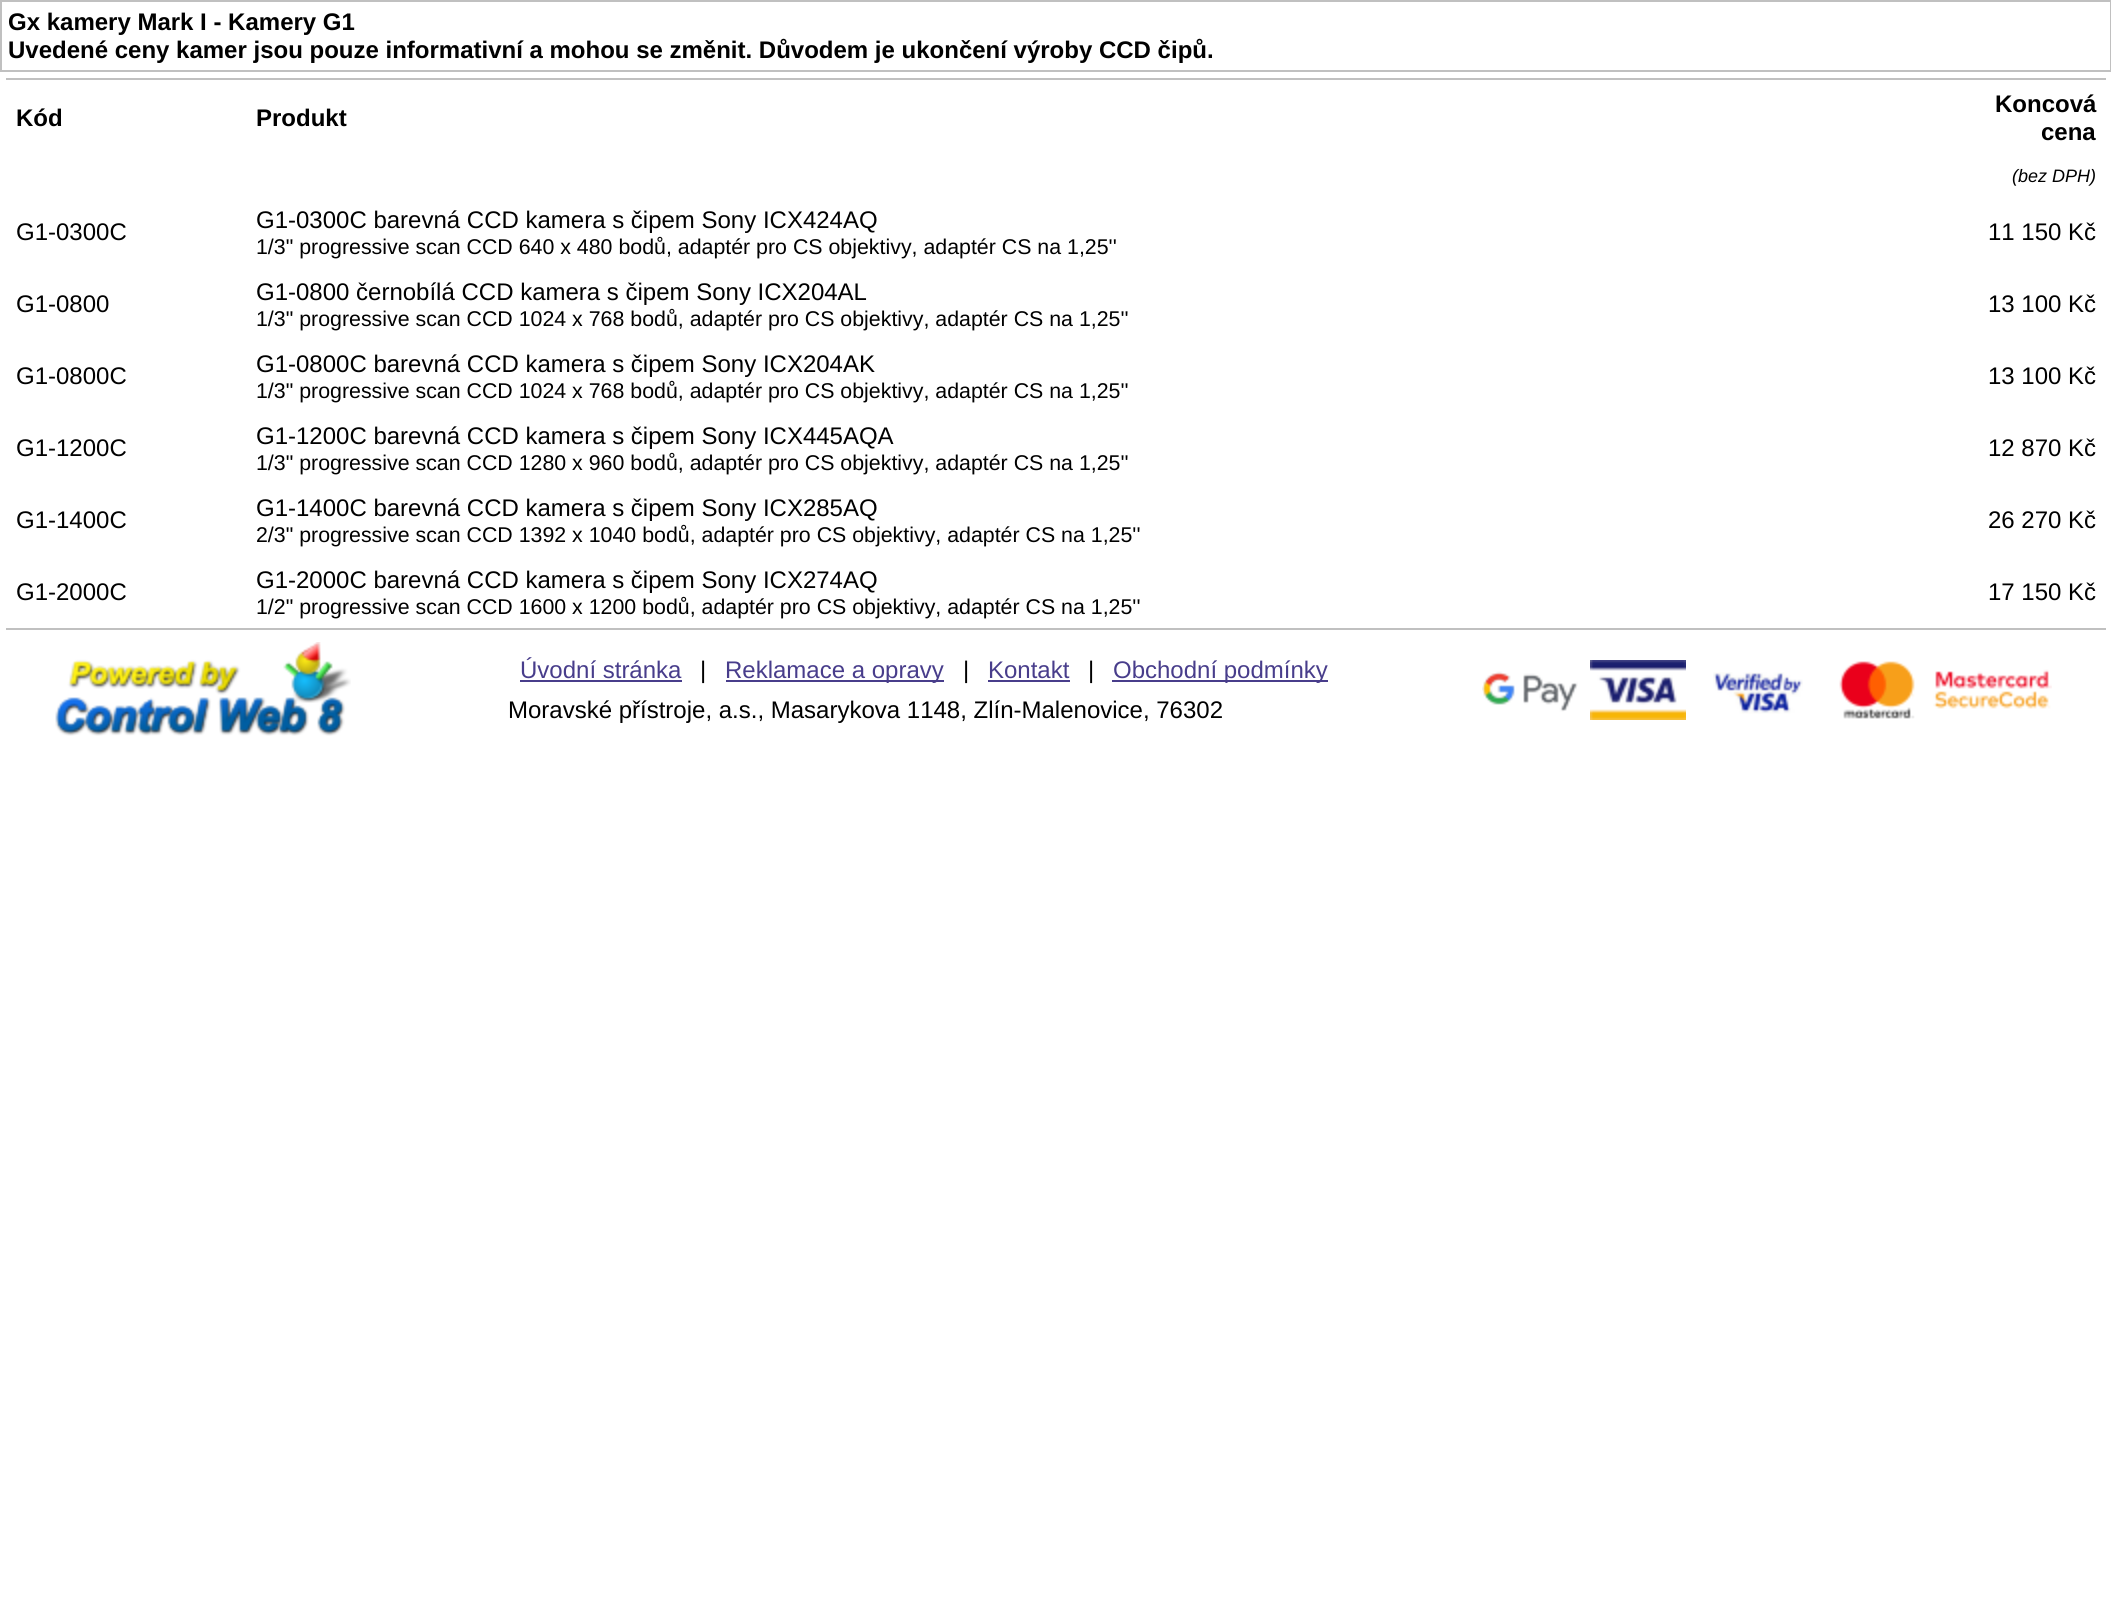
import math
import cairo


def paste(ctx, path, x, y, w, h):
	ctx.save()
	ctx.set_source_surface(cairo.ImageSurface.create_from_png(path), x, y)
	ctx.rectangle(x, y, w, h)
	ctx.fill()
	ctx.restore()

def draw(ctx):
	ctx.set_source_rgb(1, 1, 1)
	ctx.paint()
	ctx.rectangle(1, 1, 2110, 70)
	ctx.set_source_rgb(0.753, 0.753, 0.753)
	ctx.stroke()
	ctx.select_font_face('Liberation Sans', cairo.FONT_SLANT_NORMAL, cairo.FONT_WEIGHT_BOLD)
	ctx.set_font_size(24)
	ctx.set_source_rgb(0, 0, 0)
	ctx.move_to(8, 30)
	ctx.show_text('Gx kamery Mark I - Kamery G1')
	ctx.move_to(8, 58)
	ctx.show_text('Uvedené ceny kamer jsou pouze informativní a mohou se změnit. Důvodem je ukončení výroby CCD čipů.')
	ctx.set_source_rgb(0.753, 0.753, 0.753)
	ctx.rectangle(6, 628, 2100, 2)
	ctx.fill()
	ctx.rectangle(6, 78, 2100, 2)
	ctx.fill()
	ctx.set_source_rgb(0, 0, 0)
	for x, y, s in [
		(16, 126, 'Kód'),
		(256, 126, 'Produkt'),
		(1995, 112, 'Koncová'),
		(2041, 140, 'cena'),
	]:
		ctx.move_to(x, y)
		ctx.show_text(s)
	ctx.select_font_face('Liberation Sans', cairo.FONT_SLANT_ITALIC)
	ctx.set_font_size(18)
	ctx.move_to(2012, 182)
	ctx.show_text('(bez DPH)')
	ctx.select_font_face('Liberation Sans')
	ctx.set_font_size(24)
	ctx.move_to(16, 240)
	ctx.show_text('G1-0300C')
	ctx.move_to(256, 228)
	ctx.show_text('G1-0300C barevná CCD kamera s čipem Sony ICX424AQ')
	ctx.set_font_size(21.35)
	ctx.move_to(256, 254)
	ctx.show_text('1/3" progressive scan CCD 640 x 480 bodů, adaptér pro CS objektivy, adaptér CS na 1,25\'\'')
	ctx.set_font_size(24)
	for x, y, s in [
		(1988, 240, '11 150 Kč'),
		(16, 312, 'G1-0800'),
		(256, 300, 'G1-0800 černobílá CCD kamera s čipem Sony ICX204AL'),
	]:
		ctx.move_to(x, y)
		ctx.show_text(s)
	ctx.set_font_size(21.35)
	ctx.move_to(256, 326)
	ctx.show_text('1/3" progressive scan CCD 1024 x 768 bodů, adaptér pro CS objektivy, adaptér CS na 1,25\'\'')
	ctx.set_font_size(24)
	for x, y, s in [
		(1988, 312, '13 100 Kč'),
		(16, 384, 'G1-0800C'),
		(256, 372, 'G1-0800C barevná CCD kamera s čipem Sony ICX204AK'),
	]:
		ctx.move_to(x, y)
		ctx.show_text(s)
	ctx.set_font_size(21.35)
	ctx.move_to(256, 398)
	ctx.show_text('1/3" progressive scan CCD 1024 x 768 bodů, adaptér pro CS objektivy, adaptér CS na 1,25\'\'')
	ctx.set_font_size(24)
	for x, y, s in [
		(1988, 384, '13 100 Kč'),
		(16, 456, 'G1-1200C'),
		(256, 444, 'G1-1200C barevná CCD kamera s čipem Sony ICX445AQA'),
	]:
		ctx.move_to(x, y)
		ctx.show_text(s)
	ctx.set_font_size(21.35)
	ctx.move_to(256, 470)
	ctx.show_text('1/3" progressive scan CCD 1280 x 960 bodů, adaptér pro CS objektivy, adaptér CS na 1,25\'\'')
	ctx.set_font_size(24)
	for x, y, s in [
		(1988, 456, '12 870 Kč'),
		(16, 528, 'G1-1400C'),
		(256, 516, 'G1-1400C barevná CCD kamera s čipem Sony ICX285AQ'),
	]:
		ctx.move_to(x, y)
		ctx.show_text(s)
	ctx.set_font_size(21.35)
	ctx.move_to(256, 542)
	ctx.show_text('2/3" progressive scan CCD 1392 x 1040 bodů, adaptér pro CS objektivy, adaptér CS na 1,25\'\'')
	ctx.set_font_size(24)
	for x, y, s in [
		(1988, 528, '26 270 Kč'),
		(16, 600, 'G1-2000C'),
		(256, 588, 'G1-2000C barevná CCD kamera s čipem Sony ICX274AQ'),
	]:
		ctx.move_to(x, y)
		ctx.show_text(s)
	ctx.set_font_size(21.35)
	ctx.move_to(256, 614)
	ctx.show_text('1/2" progressive scan CCD 1600 x 1200 bodů, adaptér pro CS objektivy, adaptér CS na 1,25\'\'')
	ctx.set_font_size(24)
	ctx.move_to(1988, 600)
	ctx.show_text('17 150 Kč')
	paste(ctx, 'media/1.png', 55, 642, 296, 94)
	ctx.set_source_rgb(0.282, 0.239, 0.545)
	ctx.move_to(520, 678)
	ctx.show_text('Úvodní stránka')
	ctx.rectangle(520, 680, 162, 2)
	ctx.fill()
	ctx.set_source_rgb(0, 0, 0)
	ctx.move_to(700, 678)
	ctx.show_text('|')
	ctx.set_source_rgb(0.282, 0.239, 0.545)
	ctx.rectangle(726, 680, 218, 2)
	ctx.fill()
	ctx.move_to(725, 678)
	ctx.show_text('Reklamace a opravy')
	ctx.set_source_rgb(0, 0, 0)
	ctx.move_to(963, 678)
	ctx.show_text('|')
	ctx.set_source_rgb(0.282, 0.239, 0.545)
	ctx.move_to(988, 678)
	ctx.show_text('Kontakt')
	ctx.rectangle(988, 680, 82, 2)
	ctx.fill()
	ctx.set_source_rgb(0, 0, 0)
	ctx.move_to(1088, 678)
	ctx.show_text('|')
	ctx.set_source_rgb(0.282, 0.239, 0.545)
	ctx.rectangle(1112, 680, 216, 2)
	ctx.fill()
	ctx.move_to(1113, 678)
	ctx.show_text('Obchodní podmínky')
	ctx.set_source_rgb(0, 0, 0)
	ctx.move_to(508, 718)
	ctx.show_text('Moravské přístroje, a.s., Masarykova 1148, Zlín-Malenovice, 76302')
	paste(ctx, 'media/2.png', 1482, 671, 96, 41)
	paste(ctx, 'media/3.png', 1590, 660, 96, 60)
	paste(ctx, 'media/4.png', 1713, 672, 90, 42)
	paste(ctx, 'media/5.png', 1839, 661, 76, 58)
	paste(ctx, 'media/6.png', 1933, 669, 119, 40)


surface = cairo.ImageSurface(cairo.FORMAT_RGB24, 2111, 1621)
ctx = cairo.Context(surface)
options = cairo.FontOptions()
options.set_hint_metrics(cairo.HINT_METRICS_OFF)
options.set_hint_style(cairo.HINT_STYLE_NONE)
ctx.set_font_options(options)
ctx.set_miter_limit(4)
draw(ctx)
surface.write_to_png('image.png')
